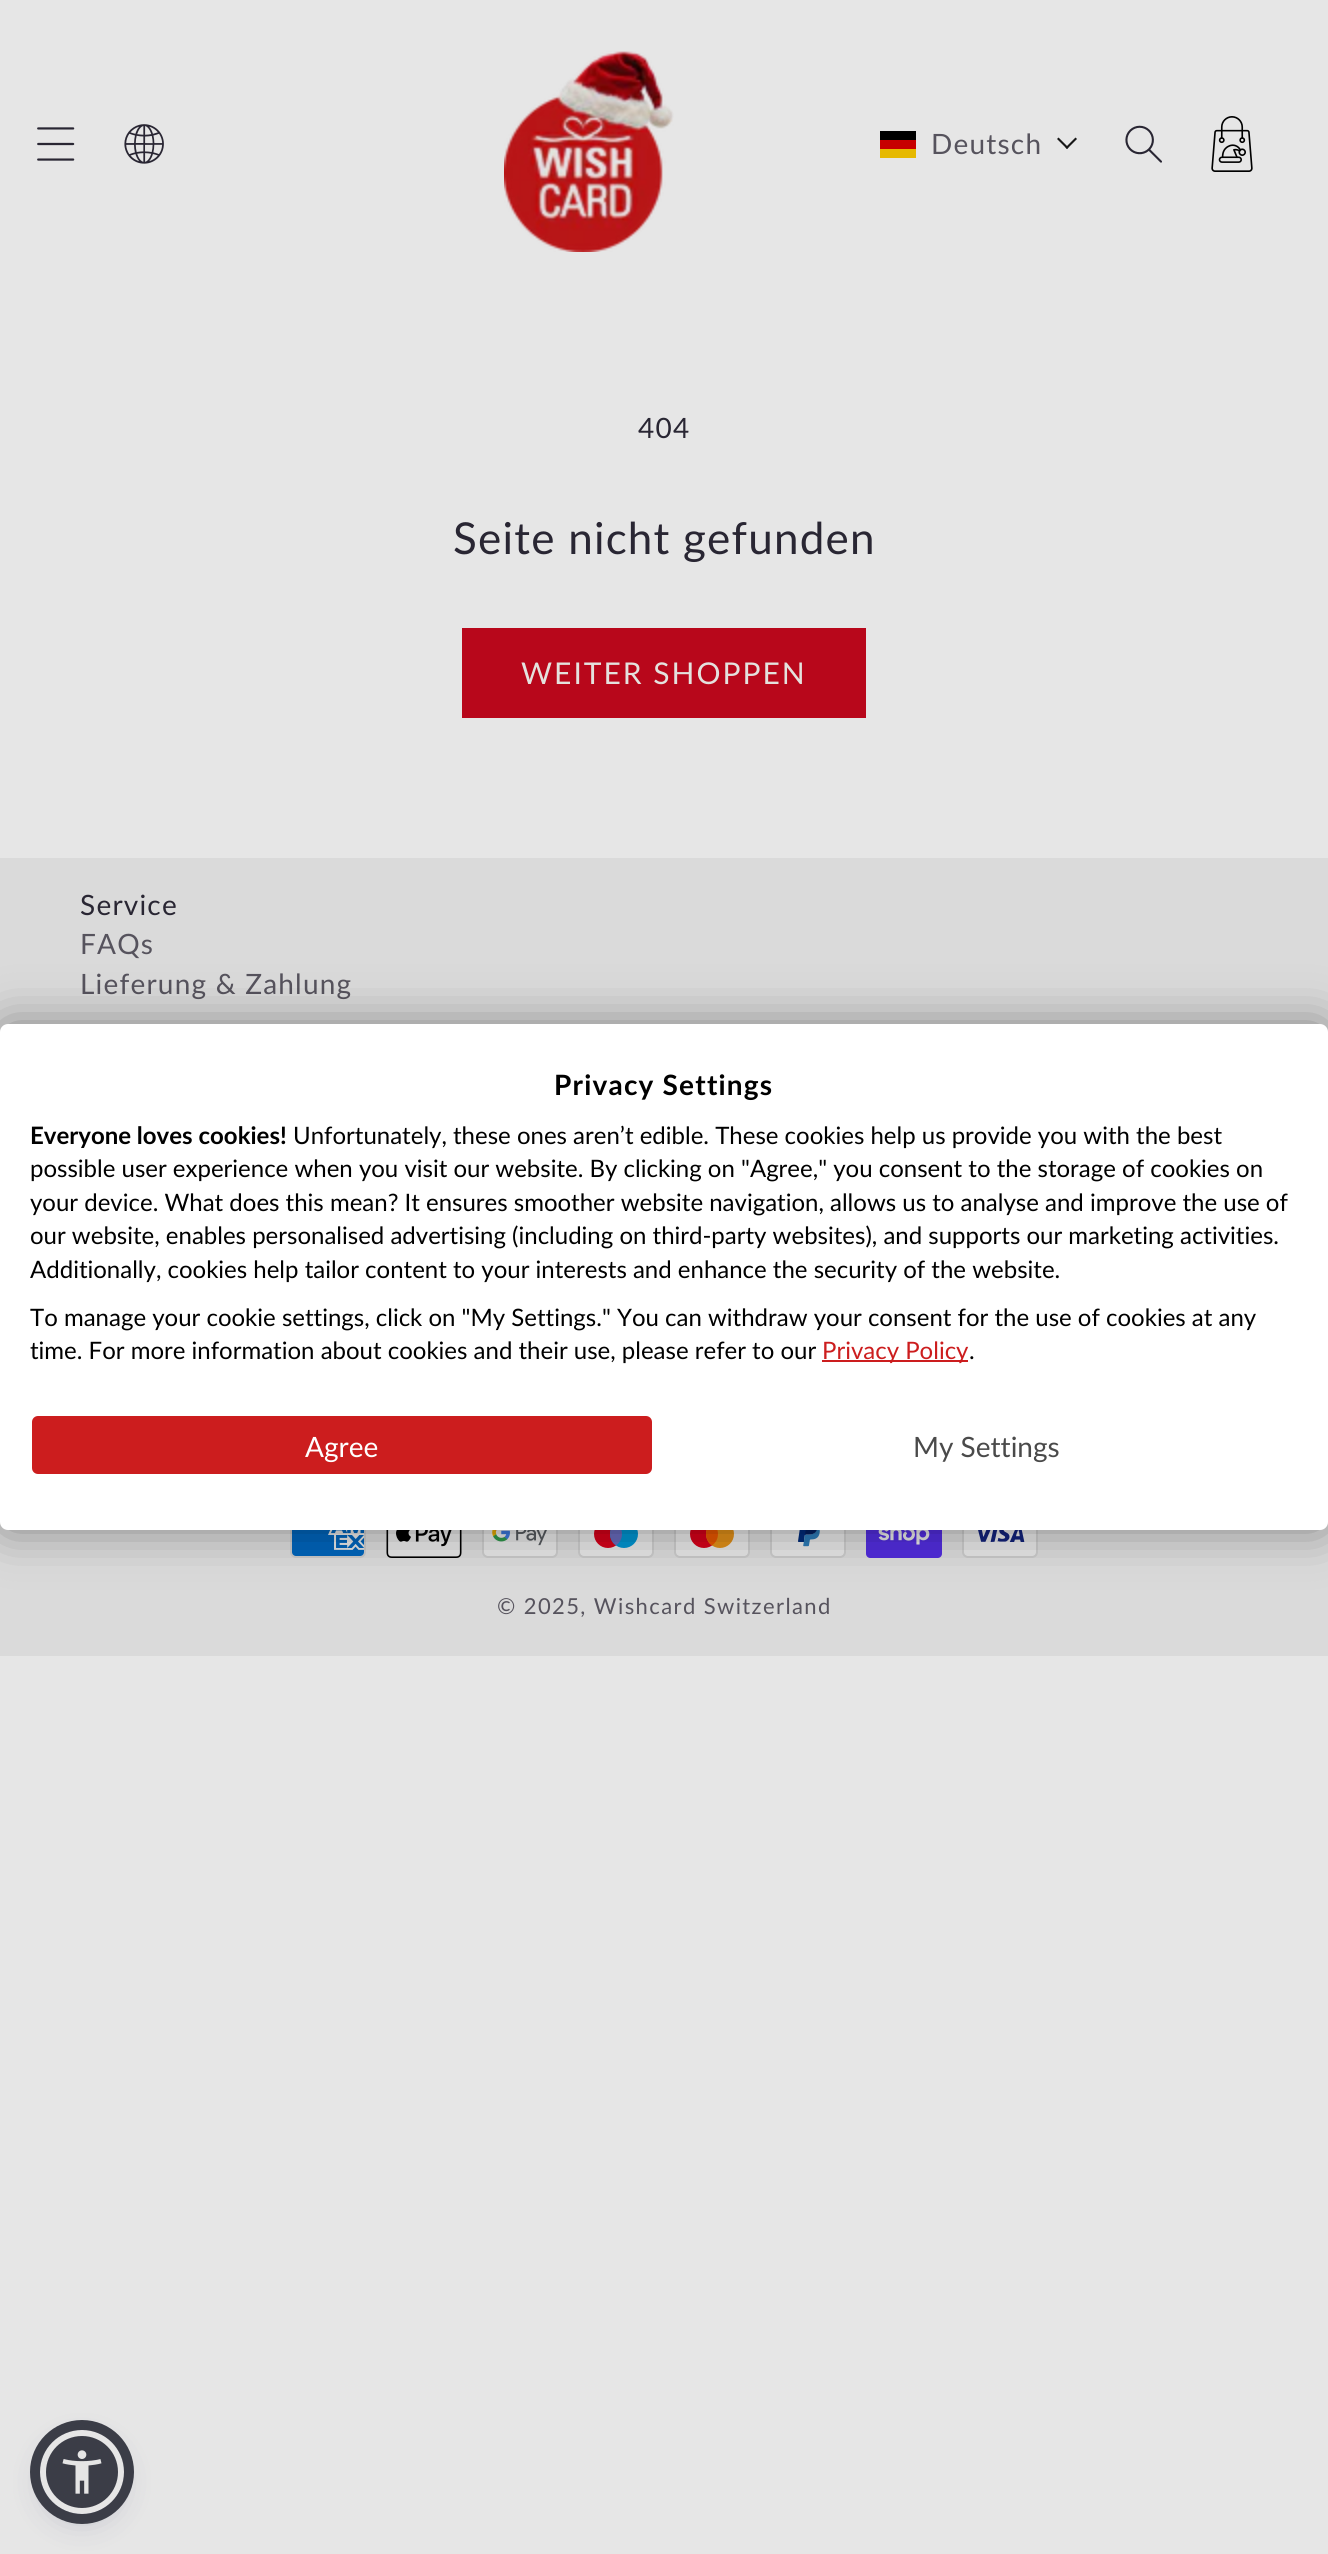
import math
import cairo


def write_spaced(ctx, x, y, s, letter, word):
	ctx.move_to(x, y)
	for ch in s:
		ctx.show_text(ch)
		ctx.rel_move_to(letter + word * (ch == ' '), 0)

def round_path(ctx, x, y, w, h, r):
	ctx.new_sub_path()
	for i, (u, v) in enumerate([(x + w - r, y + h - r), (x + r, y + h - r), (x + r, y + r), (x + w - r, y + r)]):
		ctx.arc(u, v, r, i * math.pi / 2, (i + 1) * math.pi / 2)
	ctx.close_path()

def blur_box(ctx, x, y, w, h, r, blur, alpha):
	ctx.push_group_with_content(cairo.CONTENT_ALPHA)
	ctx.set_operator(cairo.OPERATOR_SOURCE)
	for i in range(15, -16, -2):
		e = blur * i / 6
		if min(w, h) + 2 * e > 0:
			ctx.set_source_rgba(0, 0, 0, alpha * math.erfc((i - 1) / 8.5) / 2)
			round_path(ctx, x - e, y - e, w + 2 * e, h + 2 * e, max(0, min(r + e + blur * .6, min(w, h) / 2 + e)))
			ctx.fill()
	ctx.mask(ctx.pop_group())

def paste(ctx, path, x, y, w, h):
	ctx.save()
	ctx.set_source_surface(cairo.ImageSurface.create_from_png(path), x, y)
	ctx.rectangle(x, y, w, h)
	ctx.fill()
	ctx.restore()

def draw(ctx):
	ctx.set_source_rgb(0.902, 0.902, 0.902)
	ctx.paint()
	paste(ctx, 'media/1.png', 37, 127, 38, 34)
	paste(ctx, 'media/2.png', 124, 124, 40, 40)
	paste(ctx, 'media/3.png', 504, 51, 170, 201)
	ctx.set_source_rgb(0.902, 0.725, 0)
	ctx.rectangle(880, 149, 36, 9)
	ctx.fill()
	ctx.set_source_rgb(0, 0, 0)
	ctx.rectangle(880, 131, 36, 9)
	ctx.fill()
	ctx.set_source_rgb(0.78, 0, 0)
	ctx.rectangle(880, 140, 36, 9)
	ctx.fill()
	ctx.select_font_face('Lato')
	ctx.set_font_size(28)
	ctx.set_source_rgb(0.337, 0.325, 0.365)
	write_spaced(ctx, 931, 154, 'Deutsch', 1.2, 0)
	ctx.set_source_rgb(0.09, 0.09, 0.09)
	ctx.new_path()
	ctx.move_to(1075.5, 137.5)
	ctx.line_to(1077, 139)
	ctx.line_to(1067, 149)
	ctx.line_to(1065.5, 147.5)
	ctx.close_path()
	ctx.fill()
	ctx.new_path()
	ctx.move_to(1058.5, 137.5)
	ctx.line_to(1068.5, 147.5)
	ctx.line_to(1067, 149)
	ctx.line_to(1057, 139)
	ctx.close_path()
	ctx.fill()
	paste(ctx, 'media/4.png', 1125, 125, 37, 38)
	paste(ctx, 'media/5.png', 1211, 116, 42, 56)
	ctx.set_source_rgb(0.161, 0.149, 0.2)
	write_spaced(ctx, 638, 438, '404', 1.2, 0)
	ctx.set_font_size(44)
	write_spaced(ctx, 453, 554, 'Seite nicht gefunden', 1.2, 0)
	ctx.set_source_rgb(0.722, 0.031, 0.106)
	ctx.rectangle(462, 628, 404, 90)
	ctx.fill()
	ctx.set_font_size(30)
	ctx.set_source_rgb(0.894, 0.886, 0.871)
	write_spaced(ctx, 521, 684, 'WEITER SHOPPEN', 2, 0)
	ctx.set_source_rgb(0.855, 0.855, 0.855)
	ctx.rectangle(0, 858, 1328, 798)
	ctx.fill()
	ctx.set_font_size(28)
	ctx.set_source_rgb(0.161, 0.149, 0.2)
	write_spaced(ctx, 80, 915, 'Service', 1.2, 0)
	ctx.set_source_rgb(0.337, 0.325, 0.365)
	write_spaced(ctx, 80, 954, 'FAQs', 1.2, 0)
	write_spaced(ctx, 80, 994, 'Lieferung & Zahlung', 1.2, 0)
	paste(ctx, 'media/6.png', 290, 1530, 76, 28)
	paste(ctx, 'media/7.png', 386, 1530, 76, 28)
	paste(ctx, 'media/8.png', 482, 1530, 76, 28)
	paste(ctx, 'media/9.png', 578, 1530, 76, 28)
	paste(ctx, 'media/10.png', 674, 1530, 76, 28)
	paste(ctx, 'media/11.png', 770, 1530, 76, 28)
	paste(ctx, 'media/12.png', 866, 1530, 76, 28)
	paste(ctx, 'media/13.png', 962, 1530, 76, 28)
	ctx.set_font_size(22)
	write_spaced(ctx, 497, 1614, '© 2025, Wishcard Switzerland', 1.4, 0)
	ctx.set_source_rgb(0, 0, 0)
	blur_box(ctx, 0, 1024, 1328, 506, 8, 24, 0.4)
	ctx.set_source_rgb(1, 1, 1)
	round_path(ctx, 0, 1024, 1328, 506, 8)
	ctx.fill()
	ctx.select_font_face('Lato', cairo.FONT_SLANT_NORMAL, cairo.FONT_WEIGHT_BOLD)
	ctx.set_font_size(28)
	ctx.set_source_rgb(0, 0, 0)
	write_spaced(ctx, 554, 1095, 'Privacy Settings', 1.2, 0)
	ctx.set_font_size(24)
	ctx.move_to(30, 1144)
	ctx.show_text('Everyone loves cookies!')
	ctx.select_font_face('Lato')
	for x, y, s in [
		(293, 1144, 'Unfortunately, these ones aren’t edible. These cookies help us provide you with the best'),
		(30, 1177, 'possible user experience when you visit our website. By clicking on "Agree," you consent to the storage of cookies on'),
		(30, 1211, 'your device. What does this mean? It ensures smoother website navigation, allows us to analyse and improve the use of'),
		(30, 1244, 'our website, enables personalised advertising (including on third-party websites), and supports our marketing activities.'),
		(30, 1278, 'Additionally, cookies help tailor content to your interests and enhance the security of the website.'),
		(30, 1326, 'To manage your cookie settings, click on "My Settings." You can withdraw your consent for the use of cookies at any'),
		(30, 1359, 'time. For more information about cookies and their use, please refer to our'),
	]:
		ctx.move_to(x, y)
		ctx.show_text(s)
	ctx.set_source_rgb(0.8, 0.114, 0.118)
	ctx.rectangle(822, 1360, 146, 2)
	ctx.fill()
	ctx.move_to(822, 1359)
	ctx.show_text('Privacy Policy')
	ctx.set_source_rgb(0, 0, 0)
	ctx.move_to(969, 1359)
	ctx.show_text('.')
	ctx.set_source_rgb(0.8, 0.114, 0.118)
	round_path(ctx, 31, 1415, 622, 60, 7)
	ctx.fill_preserve()
	ctx.set_source_rgb(1, 1, 1)
	ctx.stroke()
	ctx.set_font_size(28)
	ctx.move_to(305, 1457)
	ctx.show_text('Agree')
	ctx.set_source_rgb(0.29, 0.29, 0.29)
	ctx.move_to(913, 1457)
	ctx.show_text('My Settings')
	ctx.set_source_rgb(0.329, 0.353, 0.522)
	blur_box(ctx, 40, 2434, 84, 84, 42, 4, 0.2)
	ctx.set_source_rgb(0.129, 0.157, 0.341)
	blur_box(ctx, 40, 2440, 84, 84, 42, 15, 0.15)
	ctx.set_source_rgb(0.231, 0.239, 0.278)
	ctx.arc(82, 2472, 39, 0, 2 * math.pi)
	ctx.fill_preserve()
	ctx.set_source_rgb(0.902, 0.902, 0.902)
	ctx.set_line_width(6)
	ctx.stroke()
	ctx.arc(82, 2472, 47, 0, 2 * math.pi)
	ctx.set_source_rgb(0.231, 0.239, 0.278)
	ctx.set_line_width(10)
	ctx.stroke()
	paste(ctx, 'media/14.png', 62, 2450, 40, 44)


surface = cairo.ImageSurface(cairo.FORMAT_RGB24, 1328, 2554)
ctx = cairo.Context(surface)
options = cairo.FontOptions()
options.set_hint_metrics(cairo.HINT_METRICS_OFF)
options.set_hint_style(cairo.HINT_STYLE_NONE)
ctx.set_font_options(options)
ctx.set_miter_limit(4)
draw(ctx)
surface.write_to_png('image.png')
